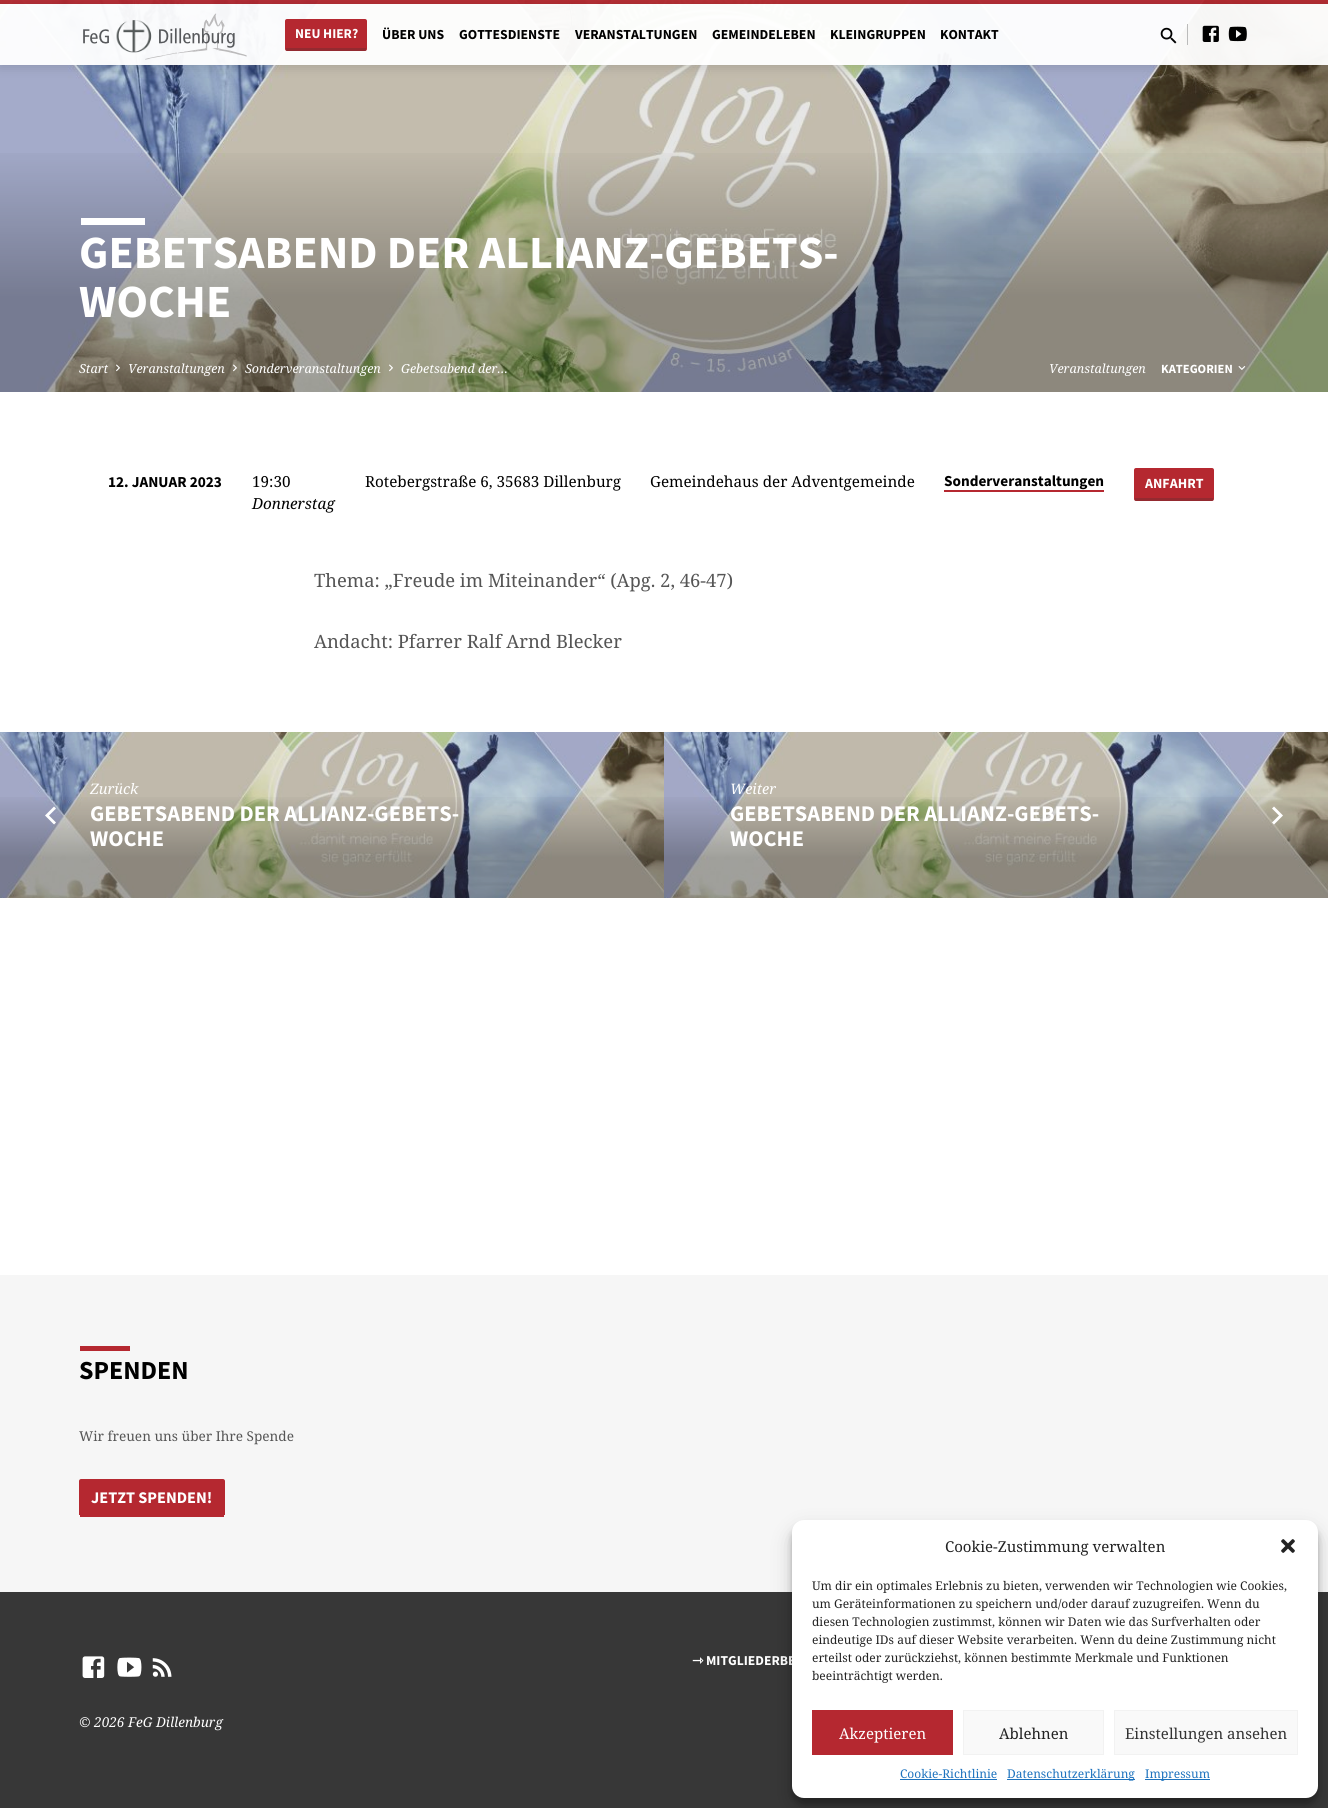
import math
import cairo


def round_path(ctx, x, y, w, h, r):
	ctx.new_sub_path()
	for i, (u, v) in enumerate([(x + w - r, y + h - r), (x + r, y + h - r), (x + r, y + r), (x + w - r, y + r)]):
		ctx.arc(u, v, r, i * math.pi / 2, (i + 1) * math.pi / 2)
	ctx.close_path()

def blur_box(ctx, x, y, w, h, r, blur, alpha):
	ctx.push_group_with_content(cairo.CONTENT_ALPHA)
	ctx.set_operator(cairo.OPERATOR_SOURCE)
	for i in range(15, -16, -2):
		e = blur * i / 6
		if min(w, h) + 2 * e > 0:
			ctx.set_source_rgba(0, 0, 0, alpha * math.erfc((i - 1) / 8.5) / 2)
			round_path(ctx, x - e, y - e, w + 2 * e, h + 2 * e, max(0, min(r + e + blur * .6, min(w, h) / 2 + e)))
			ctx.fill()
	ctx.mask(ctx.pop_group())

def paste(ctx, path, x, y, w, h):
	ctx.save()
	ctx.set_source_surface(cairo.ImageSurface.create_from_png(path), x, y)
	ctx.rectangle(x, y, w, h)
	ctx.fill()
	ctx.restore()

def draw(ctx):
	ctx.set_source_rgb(1, 1, 1)
	ctx.paint()
	paste(ctx, 'media/5.png', 0, 0, 1328, 392)
	ctx.set_source_rgba(0.71, 0.157, 0.188, 0.95)
	ctx.rectangle(0, 0, 1328, 4)
	ctx.fill()
	ctx.set_source_rgba(1, 1, 1, 0.95)
	ctx.rectangle(0, 4, 1328, 61)
	ctx.fill()
	ctx.save()
	ctx.set_fill_rule(cairo.FILL_RULE_EVEN_ODD)
	ctx.new_path()
	ctx.move_to(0, 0)
	ctx.line_to(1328, 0)
	ctx.line_to(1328, 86)
	ctx.line_to(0, 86)
	ctx.close_path()
	ctx.move_to(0, 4)
	ctx.line_to(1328, 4)
	ctx.line_to(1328, 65)
	ctx.line_to(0, 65)
	ctx.close_path()
	ctx.clip()
	ctx.set_source_rgb(0, 0, 0)
	blur_box(ctx, 0, 6, 1328, 61, 0, 6, 0.14)
	ctx.restore()
	paste(ctx, 'media/1.png', 83, 13, 164, 47)
	ctx.set_source_rgb(0.71, 0.157, 0.188)
	round_path(ctx, 285, 19, 82, 32, 2)
	ctx.fill()
	ctx.set_source_rgba(0.196, 0.196, 0.196, 0.25)
	ctx.rectangle(286, 48, 80, 3)
	ctx.fill()
	ctx.select_font_face('Source Sans Pro', cairo.FONT_SLANT_NORMAL, cairo.FONT_WEIGHT_BOLD)
	ctx.set_font_size(13.5)
	ctx.set_source_rgb(1, 1, 1)
	ctx.move_to(295, 38)
	ctx.show_text('NEU HIER?')
	ctx.set_font_size(13.75)
	ctx.set_source_rgb(0, 0, 0)
	for x, y, s in [
		(382, 39, 'ÜBER UNS'),
		(459, 39, 'GOTTESDIENSTE'),
		(575, 39, 'VERANSTALTUNGEN'),
		(712, 39, 'GEMEINDELEBEN'),
		(830, 39, 'KLEINGRUPPEN'),
		(940, 39, 'KONTAKT'),
	]:
		ctx.move_to(x, y)
		ctx.show_text(s)
	paste(ctx, 'media/2.png', 1160, 27, 17, 17)
	ctx.set_source_rgb(0.733, 0.733, 0.733)
	ctx.rectangle(1187, 24, 1, 21)
	ctx.fill()
	paste(ctx, 'media/3.png', 1202, 25, 17, 17)
	paste(ctx, 'media/4.png', 1228, 26, 19, 16)
	gradient = cairo.LinearGradient(664, 0, 664, 392)
	gradient.add_color_stop_rgba(0, 0, 0, 0, 0)
	gradient.add_color_stop_rgba(0.36, 0, 0, 0, 0)
	gradient.add_color_stop_rgba(0.76, 0, 0, 0, 0.28)
	gradient.add_color_stop_rgba(1, 0, 0, 0, 0.28)
	ctx.set_source(gradient)
	ctx.rectangle(0, 153, 1328, 239)
	ctx.fill()
	ctx.set_source_rgb(1, 1, 1)
	ctx.rectangle(81, 218, 64, 7)
	ctx.fill()
	ctx.set_font_size(46.1)
	ctx.move_to(79, 268)
	ctx.show_text('GEBETSABEND DER ALLIANZ-GEBETS-')
	ctx.move_to(79, 317)
	ctx.show_text('WOCHE')
	ctx.select_font_face('Noto Serif', cairo.FONT_SLANT_ITALIC)
	ctx.set_font_size(12.5)
	ctx.move_to(79, 373)
	ctx.show_text('Start')
	paste(ctx, 'media/6.png', 116, 364, 4, 8)
	ctx.move_to(128, 373)
	ctx.show_text('Veranstaltungen')
	paste(ctx, 'media/7.png', 233, 364, 4, 8)
	ctx.move_to(245, 373)
	ctx.show_text('Sonderveranstaltungen')
	paste(ctx, 'media/8.png', 389, 364, 4, 8)
	ctx.move_to(401, 373)
	ctx.show_text('Gebetsabend der…')
	ctx.move_to(1049, 373)
	ctx.show_text('Veranstaltungen')
	ctx.select_font_face('Source Sans Pro', cairo.FONT_SLANT_NORMAL, cairo.FONT_WEIGHT_BOLD)
	ctx.move_to(1161, 373)
	ctx.show_text('KATEGORIEN')
	paste(ctx, 'media/9.png', 1238, 366, 8, 4)
	ctx.set_font_size(15.25)
	ctx.set_source_rgb(0, 0, 0)
	ctx.move_to(108, 487)
	ctx.show_text('12. JANUAR 2023')
	ctx.select_font_face('Noto Serif')
	ctx.move_to(252, 487)
	ctx.show_text('19:30')
	ctx.select_font_face('Noto Serif', cairo.FONT_SLANT_ITALIC)
	ctx.move_to(252, 509)
	ctx.show_text('Donnerstag')
	ctx.select_font_face('Noto Serif')
	ctx.move_to(365, 487)
	ctx.show_text('Rotebergstraße 6, 35683 Dillenburg')
	ctx.move_to(650, 487)
	ctx.show_text('Gemeindehaus der Adventgemeinde')
	ctx.select_font_face('Source Sans Pro', cairo.FONT_SLANT_NORMAL, cairo.FONT_WEIGHT_BOLD)
	ctx.move_to(944, 486)
	ctx.show_text('Sonderveranstaltungen')
	ctx.set_source_rgb(0.71, 0.157, 0.188)
	ctx.rectangle(944, 490, 160, 2)
	ctx.fill()
	round_path(ctx, 1134, 468, 80, 33, 2)
	ctx.fill()
	ctx.set_source_rgba(0.196, 0.196, 0.196, 0.25)
	ctx.rectangle(1135, 498, 78, 3)
	ctx.fill()
	ctx.set_font_size(14)
	ctx.set_source_rgb(1, 1, 1)
	ctx.move_to(1145, 488)
	ctx.show_text('ANFAHRT')
	ctx.select_font_face('Noto Serif')
	ctx.set_font_size(18.4)
	ctx.set_source_rgb(0.333, 0.333, 0.333)
	ctx.move_to(314, 587)
	ctx.show_text('Thema: „Freude im Miteinander“ (Apg. 2, 46-47)')
	ctx.move_to(314, 648)
	ctx.show_text('Andacht: Pfarrer Ralf Arnd Blecker')
	paste(ctx, 'media/10.png', 0, 732, 664, 166)
	gradient = cairo.LinearGradient(336, 732, 336, 898)
	gradient.add_color_stop_rgba(0, 0.024, 0.024, 0.024, 0)
	gradient.add_color_stop_rgba(0.36, 0.024, 0.024, 0.024, 0)
	gradient.add_color_stop_rgba(0.76, 0.024, 0.024, 0.024, 0.28)
	gradient.add_color_stop_rgba(1, 0.024, 0.024, 0.024, 0.28)
	ctx.set_source(gradient)
	ctx.rectangle(0, 797, 664, 101)
	ctx.fill()
	ctx.set_source_rgb(1, 1, 1)
	ctx.new_path()
	ctx.move_to(56, 822.5)
	ctx.line_to(49, 815.5)
	ctx.line_to(56, 808.5)
	ctx.line_to(54, 806.5)
	ctx.line_to(45, 815.5)
	ctx.line_to(54, 824.5)
	ctx.close_path()
	ctx.fill()
	ctx.select_font_face('Noto Serif', cairo.FONT_SLANT_ITALIC)
	ctx.set_font_size(14.5)
	ctx.move_to(90, 794)
	ctx.show_text('Zurück')
	ctx.select_font_face('Source Sans Pro', cairo.FONT_SLANT_NORMAL, cairo.FONT_WEIGHT_BOLD)
	ctx.set_font_size(22.4)
	ctx.move_to(90, 821)
	ctx.show_text('GEBETSABEND DER ALLIANZ-GEBETS-')
	ctx.move_to(90, 846)
	ctx.show_text('WOCHE')
	paste(ctx, 'media/10.png', 664, 732, 664, 166)
	gradient = cairo.LinearGradient(1000, 732, 1000, 898)
	gradient.add_color_stop_rgba(0, 0.024, 0.024, 0.024, 0)
	gradient.add_color_stop_rgba(0.36, 0.024, 0.024, 0.024, 0)
	gradient.add_color_stop_rgba(0.76, 0.024, 0.024, 0.024, 0.28)
	gradient.add_color_stop_rgba(1, 0.024, 0.024, 0.024, 0.28)
	ctx.set_source(gradient)
	ctx.rectangle(664, 797, 664, 101)
	ctx.fill()
	ctx.select_font_face('Noto Serif', cairo.FONT_SLANT_ITALIC)
	ctx.set_font_size(14.5)
	ctx.set_source_rgb(1, 1, 1)
	ctx.move_to(730, 794)
	ctx.show_text('Weiter')
	ctx.select_font_face('Source Sans Pro', cairo.FONT_SLANT_NORMAL, cairo.FONT_WEIGHT_BOLD)
	ctx.set_font_size(22.4)
	ctx.move_to(730, 821)
	ctx.show_text('GEBETSABEND DER ALLIANZ-GEBETS-')
	ctx.move_to(730, 846)
	ctx.show_text('WOCHE')
	ctx.new_path()
	ctx.move_to(1272, 822.5)
	ctx.line_to(1279, 815.5)
	ctx.line_to(1272, 808.5)
	ctx.line_to(1274, 806.5)
	ctx.line_to(1283, 815.5)
	ctx.line_to(1274, 824.5)
	ctx.close_path()
	ctx.fill()
	ctx.set_source_rgb(0.961, 0.961, 0.961)
	ctx.rectangle(0, 1275, 1328, 317)
	ctx.fill()
	ctx.set_source_rgb(0.71, 0.157, 0.188)
	ctx.rectangle(80, 1346, 50, 5)
	ctx.fill()
	ctx.set_font_size(26)
	ctx.set_source_rgb(0, 0, 0)
	ctx.move_to(79, 1379)
	ctx.show_text('SPENDEN')
	ctx.select_font_face('Noto Serif')
	ctx.set_font_size(13.6)
	ctx.set_source_rgb(0.333, 0.333, 0.333)
	ctx.move_to(79, 1441)
	ctx.show_text('Wir freuen uns über Ihre Spende')
	ctx.set_source_rgb(0.71, 0.157, 0.188)
	ctx.new_path()
	ctx.move_to(81, 1479)
	ctx.line_to(223, 1479)
	ctx.curve_to(224, 1479, 225, 1480, 225, 1481)
	ctx.line_to(225, 1515)
	ctx.line_to(79, 1515)
	ctx.line_to(79, 1481)
	ctx.curve_to(79, 1480, 80, 1479, 81, 1479)
	ctx.close_path()
	ctx.fill()
	ctx.rectangle(80, 1515, 144, 2)
	ctx.fill()
	ctx.select_font_face('Source Sans Pro', cairo.FONT_SLANT_NORMAL, cairo.FONT_WEIGHT_BOLD)
	ctx.set_font_size(16.25)
	ctx.set_source_rgb(1, 1, 1)
	ctx.move_to(91, 1503)
	ctx.show_text('JETZT SPENDEN!')
	ctx.set_source_rgb(0.216, 0.216, 0.216)
	ctx.rectangle(0, 1592, 1328, 216)
	ctx.fill()
	ctx.select_font_face('DejaVu Sans', cairo.FONT_SLANT_NORMAL, cairo.FONT_WEIGHT_BOLD)
	ctx.set_font_size(13.6)
	ctx.set_source_rgb(1, 1, 1)
	ctx.move_to(692, 1665)
	ctx.show_text('⇾')
	ctx.select_font_face('Source Sans Pro', cairo.FONT_SLANT_NORMAL, cairo.FONT_WEIGHT_BOLD)
	ctx.move_to(706, 1665)
	ctx.show_text('MITGLIEDERBE')
	paste(ctx, 'media/11.png', 82, 1656, 23, 22)
	paste(ctx, 'media/12.png', 117, 1657, 25, 20)
	paste(ctx, 'media/13.png', 152, 1658, 20, 19)
	ctx.select_font_face('Noto Serif', cairo.FONT_SLANT_ITALIC)
	ctx.move_to(79, 1727)
	ctx.show_text('© 2026 FeG Dillenburg')
	ctx.set_source_rgb(0, 0, 0)
	blur_box(ctx, 792, 1526, 526, 278, 12, 3, 0.23)
	blur_box(ctx, 792, 1530, 526, 278, 12, 10, 0.19)
	ctx.set_source_rgb(1, 1, 1)
	round_path(ctx, 792, 1520, 526, 278, 12)
	ctx.fill()
	ctx.select_font_face('Noto Serif')
	ctx.set_font_size(15)
	ctx.set_source_rgb(0.133, 0.133, 0.133)
	ctx.move_to(945, 1552)
	ctx.show_text('Cookie-Zustimmung verwalten')
	paste(ctx, 'media/14.png', 1281, 1539, 14, 14)
	ctx.set_font_size(12)
	for x, y, s in [
		(812, 1590, 'Um dir ein optimales Erlebnis zu bieten, verwenden wir Technologien wie Cookies,'),
		(812, 1608, 'um Geräteinformationen zu speichern und/oder darauf zuzugreifen. Wenn du'),
		(812, 1626, 'diesen Technologien zustimmst, können wir Daten wie das Surfverhalten oder'),
		(812, 1644, 'eindeutige IDs auf dieser Website verarbeiten. Wenn du deine Zustimmung nicht'),
		(812, 1662, 'erteilst oder zurückziehst, können bestimmte Merkmale und Funktionen'),
		(812, 1680, 'beeinträchtigt werden.'),
	]:
		ctx.move_to(x, y)
		ctx.show_text(s)
	ctx.set_source_rgb(0.71, 0.157, 0.188)
	ctx.rectangle(812, 1710, 141, 45)
	ctx.fill()
	ctx.set_font_size(15)
	ctx.set_source_rgb(1, 1, 1)
	ctx.move_to(839, 1739)
	ctx.show_text('Akzeptieren')
	ctx.set_source_rgb(0.976, 0.976, 0.976)
	ctx.rectangle(963.5, 1710.5, 140, 44)
	ctx.fill_preserve()
	ctx.set_source_rgb(0.949, 0.949, 0.949)
	ctx.set_line_width(1)
	ctx.stroke()
	ctx.set_source_rgb(0.133, 0.133, 0.133)
	ctx.move_to(999, 1739)
	ctx.show_text('Ablehnen')
	ctx.set_source_rgb(0.976, 0.976, 0.976)
	ctx.rectangle(1114.5, 1710.5, 183, 44)
	ctx.fill_preserve()
	ctx.set_source_rgb(0.949, 0.949, 0.949)
	ctx.stroke()
	ctx.set_source_rgb(0.2, 0.2, 0.2)
	ctx.move_to(1125, 1739)
	ctx.show_text('Einstellungen ansehen')
	ctx.set_font_size(12)
	ctx.set_source_rgb(0.118, 0.451, 0.745)
	ctx.move_to(900, 1778)
	ctx.show_text('Cookie-Richtlinie')
	ctx.rectangle(900, 1779, 97, 1)
	ctx.fill()
	ctx.rectangle(1007, 1779, 128, 1)
	ctx.fill()
	ctx.move_to(1007, 1778)
	ctx.show_text('Datenschutzerklärung')
	ctx.rectangle(1145, 1779, 65, 1)
	ctx.fill()
	ctx.move_to(1145, 1778)
	ctx.show_text('Impressum')


surface = cairo.ImageSurface(cairo.FORMAT_RGB24, 1328, 1808)
ctx = cairo.Context(surface)
options = cairo.FontOptions()
options.set_hint_metrics(cairo.HINT_METRICS_OFF)
options.set_hint_style(cairo.HINT_STYLE_NONE)
ctx.set_font_options(options)
ctx.set_miter_limit(4)
draw(ctx)
surface.write_to_png('image.png')
